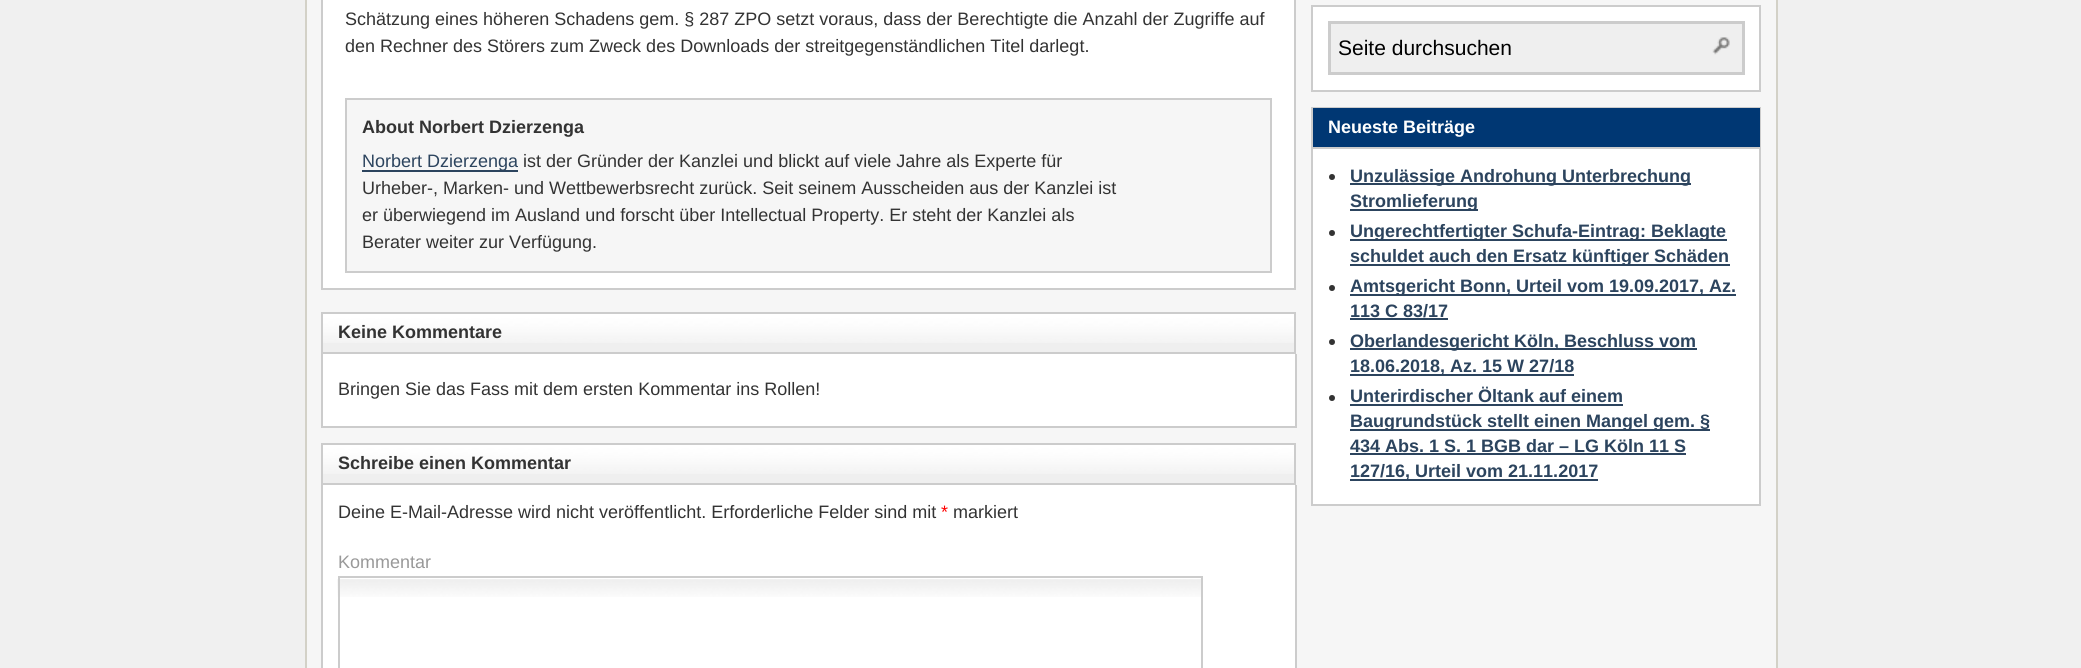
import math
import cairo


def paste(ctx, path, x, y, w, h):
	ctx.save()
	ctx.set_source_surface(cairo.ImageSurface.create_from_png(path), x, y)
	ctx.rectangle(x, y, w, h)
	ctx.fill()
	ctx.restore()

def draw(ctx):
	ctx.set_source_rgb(0.941, 0.941, 0.941)
	ctx.paint()
	ctx.set_source_rgb(0.961, 0.961, 0.961)
	ctx.rectangle(306, -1, 1471, 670)
	ctx.fill_preserve()
	ctx.set_source_rgb(0.827, 0.82, 0.78)
	ctx.stroke()
	ctx.set_source_rgb(1, 1, 1)
	ctx.rectangle(322, -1, 973, 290)
	ctx.fill_preserve()
	ctx.set_source_rgb(0.8, 0.8, 0.8)
	ctx.stroke()
	ctx.select_font_face('Liberation Sans')
	ctx.set_font_size(18)
	ctx.set_source_rgb(0.2, 0.2, 0.2)
	ctx.move_to(345, 25)
	ctx.show_text('Schätzung eines höheren Schadens gem. § 287 ZPO setzt voraus, dass der Berechtigte die Anzahl der Zugriffe auf')
	ctx.move_to(345, 52)
	ctx.show_text('den Rechner des Störers zum Zweck des Downloads der streitgegenständlichen Titel darlegt.')
	ctx.set_source_rgb(0.961, 0.961, 0.961)
	ctx.rectangle(346, 99, 925, 173)
	ctx.fill_preserve()
	ctx.set_source_rgb(0.8, 0.8, 0.8)
	ctx.stroke()
	ctx.select_font_face('Liberation Sans', cairo.FONT_SLANT_NORMAL, cairo.FONT_WEIGHT_BOLD)
	ctx.set_source_rgb(0.2, 0.2, 0.2)
	ctx.move_to(362, 133)
	ctx.show_text('About Norbert Dzierzenga')
	ctx.set_source_rgb(0.173, 0.267, 0.369)
	ctx.rectangle(362, 170, 156, 2)
	ctx.fill()
	ctx.select_font_face('Liberation Sans')
	ctx.move_to(362, 167)
	ctx.show_text('Norbert Dzierzenga')
	ctx.set_source_rgb(0.2, 0.2, 0.2)
	for x, y, s in [
		(523, 167, 'ist der Gründer der Kanzlei und blickt auf viele Jahre als Experte für'),
		(362, 194, 'Urheber-, Marken- und Wettbewerbsrecht zurück. Seit seinem Ausscheiden aus der Kanzlei ist'),
		(362, 221, 'er überwiegend im Ausland und forscht über Intellectual Property. Er steht der Kanzlei als'),
		(362, 248, 'Berater weiter zur Verfügung.'),
	]:
		ctx.move_to(x, y)
		ctx.show_text(s)
	ctx.set_source_rgb(0.937, 0.937, 0.937)
	ctx.rectangle(323, 343, 971, 9)
	ctx.fill()
	paste(ctx, 'media/1.png', 323, 314, 971, 29)
	ctx.rectangle(322, 313, 973, 40)
	ctx.set_source_rgb(0.8, 0.8, 0.8)
	ctx.stroke()
	ctx.select_font_face('Liberation Sans', cairo.FONT_SLANT_NORMAL, cairo.FONT_WEIGHT_BOLD)
	ctx.set_source_rgb(0.2, 0.2, 0.2)
	ctx.move_to(338, 338)
	ctx.show_text('Keine Kommentare')
	ctx.set_source_rgb(1, 1, 1)
	ctx.rectangle(323, 354, 972, 72)
	ctx.fill()
	ctx.set_source_rgb(0.8, 0.8, 0.8)
	ctx.rectangle(1295, 354, 2, 74)
	ctx.rectangle(321, 426, 975, 2)
	ctx.rectangle(321, 354, 2, 74)
	ctx.fill()
	ctx.select_font_face('Liberation Sans')
	ctx.set_source_rgb(0.2, 0.2, 0.2)
	ctx.move_to(338, 395)
	ctx.show_text('Bringen Sie das Fass mit dem ersten Kommentar ins Rollen!')
	ctx.set_source_rgb(0.937, 0.937, 0.937)
	ctx.rectangle(323, 474, 971, 9)
	ctx.fill()
	paste(ctx, 'media/2.png', 323, 445, 971, 29)
	ctx.rectangle(322, 444, 973, 40)
	ctx.set_source_rgb(0.8, 0.8, 0.8)
	ctx.stroke()
	ctx.select_font_face('Liberation Sans', cairo.FONT_SLANT_NORMAL, cairo.FONT_WEIGHT_BOLD)
	ctx.set_source_rgb(0.2, 0.2, 0.2)
	ctx.move_to(338, 469)
	ctx.show_text('Schreibe einen Kommentar')
	ctx.set_source_rgb(1, 1, 1)
	ctx.rectangle(323, 485, 972, 183)
	ctx.fill()
	ctx.set_source_rgb(0.8, 0.8, 0.8)
	ctx.rectangle(1295, 485, 2, 183)
	ctx.rectangle(321, 485, 2, 183)
	ctx.fill()
	ctx.select_font_face('Liberation Sans')
	ctx.set_source_rgb(0.2, 0.2, 0.2)
	ctx.move_to(338, 518)
	ctx.show_text('Deine E-Mail-Adresse wird nicht veröffentlicht. Erforderliche Felder sind mit')
	ctx.set_source_rgb(1, 0, 0)
	ctx.move_to(941, 518)
	ctx.show_text('*')
	ctx.set_source_rgb(0.2, 0.2, 0.2)
	ctx.move_to(953, 518)
	ctx.show_text('markiert')
	ctx.set_source_rgb(0.6, 0.6, 0.6)
	ctx.move_to(338, 568)
	ctx.show_text('Kommentar')
	paste(ctx, 'media/3.png', 337, 579, 864, 18)
	ctx.rectangle(339, 577, 863, 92)
	ctx.set_source_rgb(0.8, 0.8, 0.8)
	ctx.stroke()
	ctx.set_source_rgb(1, 1, 1)
	ctx.rectangle(1312, 6, 448, 85)
	ctx.fill_preserve()
	ctx.set_source_rgb(0.8, 0.8, 0.8)
	ctx.stroke()
	ctx.set_source_rgb(0.937, 0.937, 0.937)
	ctx.rectangle(1329.5, 22.5, 414, 51)
	ctx.fill_preserve()
	ctx.set_source_rgb(0.8, 0.8, 0.8)
	ctx.set_line_width(3)
	ctx.stroke()
	ctx.set_font_size(21)
	ctx.set_source_rgb(0, 0, 0)
	ctx.move_to(1338, 55)
	ctx.show_text('Seite durchsuchen')
	paste(ctx, 'media/4.png', 1712, 37, 18, 18)
	ctx.set_source_rgb(1, 1, 1)
	ctx.rectangle(1313, 149, 446, 355)
	ctx.fill()
	ctx.rectangle(1312, 108, 448, 397)
	ctx.set_source_rgb(0.8, 0.8, 0.8)
	ctx.set_line_width(2)
	ctx.stroke()
	ctx.set_source_rgb(0, 0.216, 0.451)
	ctx.rectangle(1313, 108, 447, 39)
	ctx.fill()
	ctx.set_source_rgb(0.8, 0.8, 0.8)
	ctx.rectangle(1313, 147, 447, 2)
	ctx.fill()
	ctx.select_font_face('Liberation Sans', cairo.FONT_SLANT_NORMAL, cairo.FONT_WEIGHT_BOLD)
	ctx.set_font_size(18)
	ctx.set_source_rgb(1, 1, 1)
	ctx.move_to(1328, 133)
	ctx.show_text('Neueste Beiträge')
	ctx.set_source_rgb(0.2, 0.2, 0.2)
	ctx.new_path()
	ctx.arc(1332, 177, 3, 0, 2 * math.pi)
	ctx.fill()
	ctx.set_source_rgb(0.173, 0.267, 0.369)
	ctx.rectangle(1350, 183, 341, 2)
	ctx.fill()
	ctx.move_to(1350, 182)
	ctx.show_text('Unzulässige Androhung Unterbrechung')
	ctx.rectangle(1350, 209, 128, 2)
	ctx.fill()
	ctx.move_to(1350, 207)
	ctx.show_text('Stromlieferung')
	ctx.set_source_rgb(0.2, 0.2, 0.2)
	ctx.new_path()
	ctx.arc(1332, 233, 3, 0, 2 * math.pi)
	ctx.fill()
	ctx.set_source_rgb(0.173, 0.267, 0.369)
	ctx.rectangle(1350, 239, 377, 2)
	ctx.fill()
	ctx.move_to(1350, 237)
	ctx.show_text('Ungerechtfertigter Schufa-Eintrag: Beklagte')
	ctx.rectangle(1350, 264, 380, 2)
	ctx.fill()
	ctx.move_to(1350, 262)
	ctx.show_text('schuldet auch den Ersatz künftiger Schäden')
	ctx.set_source_rgb(0.2, 0.2, 0.2)
	ctx.new_path()
	ctx.arc(1332, 288, 3, 0, 2 * math.pi)
	ctx.fill()
	ctx.set_source_rgb(0.173, 0.267, 0.369)
	ctx.rectangle(1350, 294, 386, 2)
	ctx.fill()
	ctx.move_to(1350, 292)
	ctx.show_text('Amtsgericht Bonn, Urteil vom 19.09.2017, Az.')
	ctx.move_to(1350, 317)
	ctx.show_text('113 C 83/17')
	ctx.rectangle(1350, 318, 98, 2)
	ctx.fill()
	ctx.set_source_rgb(0.2, 0.2, 0.2)
	ctx.arc(1332, 342, 3, 0, 2 * math.pi)
	ctx.fill()
	ctx.set_source_rgb(0.173, 0.267, 0.369)
	ctx.rectangle(1350, 348, 347, 2)
	ctx.fill()
	ctx.move_to(1350, 347)
	ctx.show_text('Oberlandesgericht Köln, Beschluss vom')
	ctx.rectangle(1350, 374, 224, 2)
	ctx.fill()
	ctx.move_to(1350, 372)
	ctx.show_text('18.06.2018, Az. 15 W 27/18')
	ctx.set_source_rgb(0.2, 0.2, 0.2)
	ctx.new_path()
	ctx.arc(1332, 398, 3, 0, 2 * math.pi)
	ctx.fill()
	ctx.set_source_rgb(0.173, 0.267, 0.369)
	ctx.move_to(1350, 402)
	ctx.show_text('Unterirdischer Öltank auf einem')
	ctx.rectangle(1350, 404, 273, 2)
	ctx.fill()
	ctx.rectangle(1350, 429, 360, 2)
	ctx.fill()
	ctx.move_to(1350, 427)
	ctx.show_text('Baugrundstück stellt einen Mangel gem. §')
	ctx.move_to(1350, 452)
	ctx.show_text('434 Abs. 1 S. 1 BGB dar – LG Köln 11 S')
	ctx.rectangle(1350, 453, 336, 2)
	ctx.fill()
	ctx.rectangle(1350, 479, 248, 2)
	ctx.fill()
	ctx.move_to(1350, 477)
	ctx.show_text('127/16, Urteil vom 21.11.2017')


surface = cairo.ImageSurface(cairo.FORMAT_RGB24, 2081, 668)
ctx = cairo.Context(surface)
options = cairo.FontOptions()
options.set_hint_metrics(cairo.HINT_METRICS_OFF)
options.set_hint_style(cairo.HINT_STYLE_NONE)
ctx.set_font_options(options)
ctx.set_miter_limit(4)
draw(ctx)
surface.write_to_png('image.png')
